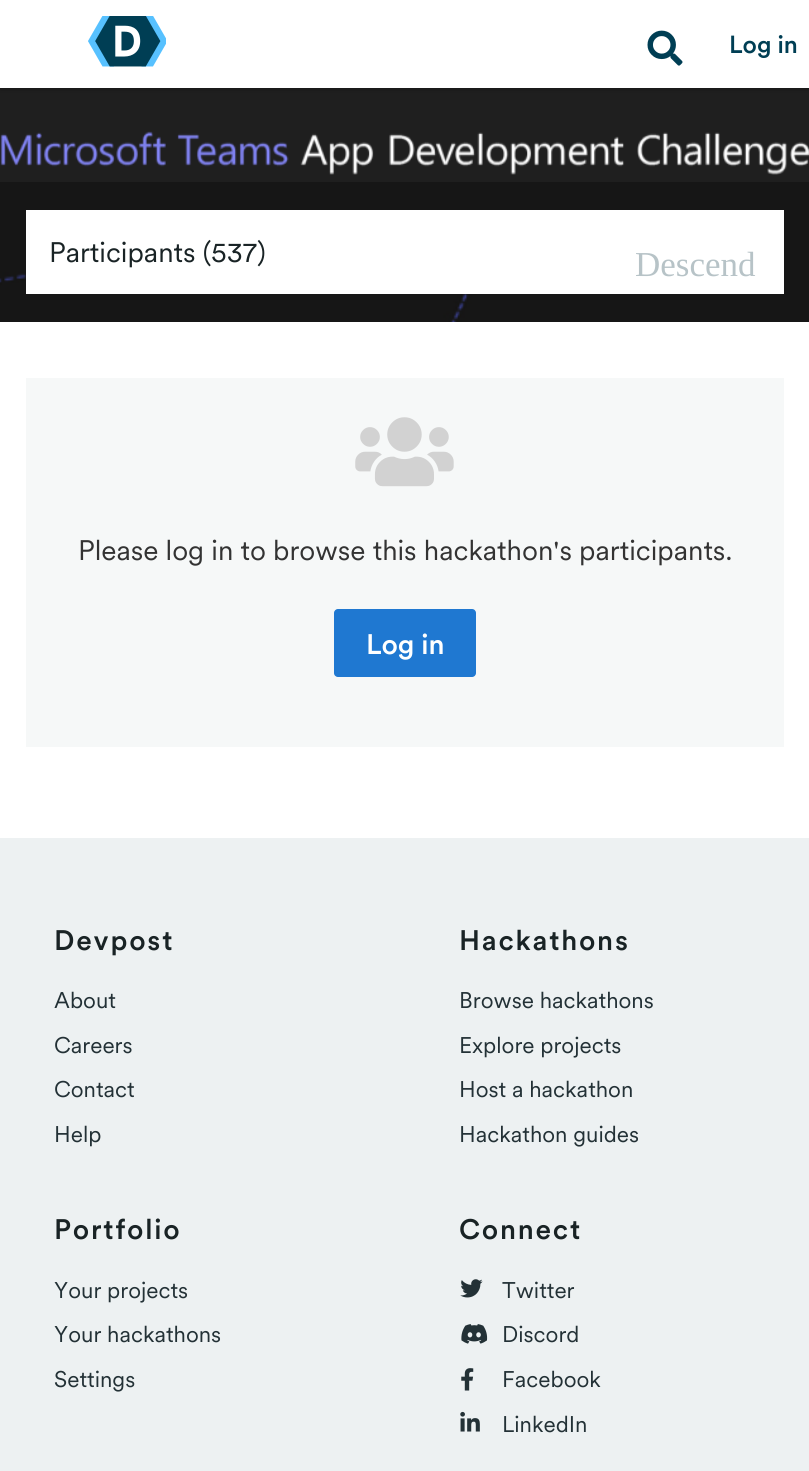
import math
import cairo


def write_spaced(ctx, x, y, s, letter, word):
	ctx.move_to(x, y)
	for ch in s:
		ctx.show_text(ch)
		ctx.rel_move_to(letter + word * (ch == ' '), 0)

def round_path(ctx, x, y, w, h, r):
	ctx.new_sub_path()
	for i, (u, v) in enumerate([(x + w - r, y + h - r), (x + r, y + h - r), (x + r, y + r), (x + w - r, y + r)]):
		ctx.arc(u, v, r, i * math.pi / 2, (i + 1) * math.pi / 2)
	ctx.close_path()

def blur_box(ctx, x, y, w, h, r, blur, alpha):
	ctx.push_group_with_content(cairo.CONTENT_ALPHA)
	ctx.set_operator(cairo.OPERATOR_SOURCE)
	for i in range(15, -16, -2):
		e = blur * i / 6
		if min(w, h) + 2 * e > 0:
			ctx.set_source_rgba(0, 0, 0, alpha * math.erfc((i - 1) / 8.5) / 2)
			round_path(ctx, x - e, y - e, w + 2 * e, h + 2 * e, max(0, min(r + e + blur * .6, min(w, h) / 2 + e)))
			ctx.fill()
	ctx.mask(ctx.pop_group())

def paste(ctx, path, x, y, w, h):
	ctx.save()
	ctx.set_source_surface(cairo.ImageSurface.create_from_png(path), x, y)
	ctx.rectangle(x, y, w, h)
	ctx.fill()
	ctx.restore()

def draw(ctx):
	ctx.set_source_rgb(1, 1, 1)
	ctx.paint()
	paste(ctx, 'media/3.png', 0, 88, 809, 234)
	ctx.set_source_rgb(0, 0, 0)
	blur_box(ctx, 0, 2, 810, 87, 0, 2.5, 0.3)
	ctx.set_source_rgb(1, 1, 1)
	ctx.rectangle(0, 0, 809, 88)
	ctx.fill()
	paste(ctx, 'media/1.png', 88, 16, 78, 51)
	paste(ctx, 'media/2.png', 647, 30, 36, 36)
	ctx.select_font_face('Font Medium')
	ctx.set_font_size(24.5)
	ctx.set_source_rgb(0, 0.243, 0.329)
	ctx.move_to(729, 53)
	ctx.show_text('Log in')
	paste(ctx, 'media/4.png', 0, 131, 809, 44)
	ctx.set_source_rgba(0, 0, 0, 0.3)
	ctx.rectangle(0, 182, 809, 140)
	ctx.fill()
	ctx.set_source_rgb(1, 1, 1)
	ctx.rectangle(26, 210, 758, 84)
	ctx.fill()
	ctx.select_font_face('Font')
	ctx.set_font_size(28)
	ctx.set_source_rgb(0.098, 0.137, 0.145)
	ctx.move_to(49, 262)
	ctx.show_text('Participants (537)')
	ctx.select_font_face('Liberation Serif')
	ctx.set_font_size(35)
	ctx.set_source_rgb(0.718, 0.765, 0.78)
	ctx.move_to(635, 276)
	ctx.show_text('Descend')
	ctx.set_source_rgb(0.961, 0.969, 0.969)
	ctx.rectangle(26, 378, 758, 369)
	ctx.fill()
	paste(ctx, 'media/5.png', 355, 417, 99, 70)
	ctx.select_font_face('Font')
	ctx.set_font_size(28)
	ctx.set_source_rgb(0.2, 0.2, 0.2)
	ctx.move_to(78, 560)
	ctx.show_text('Please log in to browse this hackathon\'s participants.')
	ctx.set_source_rgb(0.122, 0.471, 0.82)
	round_path(ctx, 334, 609, 142, 68, 4)
	ctx.fill()
	ctx.select_font_face('Font Medium')
	ctx.set_source_rgb(1, 1, 1)
	ctx.move_to(366, 654)
	ctx.show_text('Log in')
	ctx.set_source_rgb(0.929, 0.945, 0.949)
	ctx.rectangle(0, 838, 809, 633)
	ctx.fill()
	ctx.set_source_rgb(0.098, 0.137, 0.145)
	write_spaced(ctx, 54, 950, 'Devpost', 1.75, 0)
	ctx.select_font_face('Font')
	ctx.set_font_size(22.5)
	ctx.set_source_rgb(0.137, 0.192, 0.212)
	for x, y, s in [
		(54, 1008, 'About'),
		(54, 1053, 'Careers'),
		(54, 1097, 'Contact'),
		(54, 1142, 'Help'),
	]:
		ctx.move_to(x, y)
		ctx.show_text(s)
	ctx.select_font_face('Font Medium')
	ctx.set_font_size(28)
	ctx.set_source_rgb(0.098, 0.137, 0.145)
	write_spaced(ctx, 459, 950, 'Hackathons', 1.75, 0)
	ctx.select_font_face('Font')
	ctx.set_font_size(22.5)
	ctx.set_source_rgb(0.137, 0.192, 0.212)
	for x, y, s in [
		(459, 1008, 'Browse hackathons'),
		(459, 1053, 'Explore projects'),
		(459, 1097, 'Host a hackathon'),
		(459, 1142, 'Hackathon guides'),
	]:
		ctx.move_to(x, y)
		ctx.show_text(s)
	ctx.select_font_face('Font Medium')
	ctx.set_font_size(28)
	ctx.set_source_rgb(0.098, 0.137, 0.145)
	write_spaced(ctx, 54, 1239, 'Portfolio', 1.75, 0)
	ctx.select_font_face('Font')
	ctx.set_font_size(22.5)
	ctx.set_source_rgb(0.137, 0.192, 0.212)
	for x, y, s in [
		(54, 1298, 'Your projects'),
		(54, 1342, 'Your hackathons'),
		(54, 1387, 'Settings'),
	]:
		ctx.move_to(x, y)
		ctx.show_text(s)
	ctx.select_font_face('Font Medium')
	ctx.set_font_size(28)
	ctx.set_source_rgb(0.098, 0.137, 0.145)
	write_spaced(ctx, 459, 1239, 'Connect', 1.75, 0)
	paste(ctx, 'media/6.png', 460, 1279, 23, 19)
	ctx.select_font_face('Font')
	ctx.set_font_size(22.5)
	ctx.set_source_rgb(0.137, 0.192, 0.212)
	ctx.move_to(502, 1298)
	ctx.show_text('Twitter')
	paste(ctx, 'media/7.png', 461, 1324, 27, 20)
	ctx.move_to(502, 1342)
	ctx.show_text('Discord')
	paste(ctx, 'media/8.png', 461, 1368, 13, 23)
	ctx.move_to(502, 1387)
	ctx.show_text('Facebook')
	paste(ctx, 'media/9.png', 460, 1411, 20, 21)
	ctx.move_to(502, 1432)
	ctx.show_text('LinkedIn')


surface = cairo.ImageSurface(cairo.FORMAT_RGB24, 809, 1471)
ctx = cairo.Context(surface)
options = cairo.FontOptions()
options.set_hint_metrics(cairo.HINT_METRICS_OFF)
options.set_hint_style(cairo.HINT_STYLE_NONE)
ctx.set_font_options(options)
ctx.set_miter_limit(4)
draw(ctx)
surface.write_to_png('image.png')
